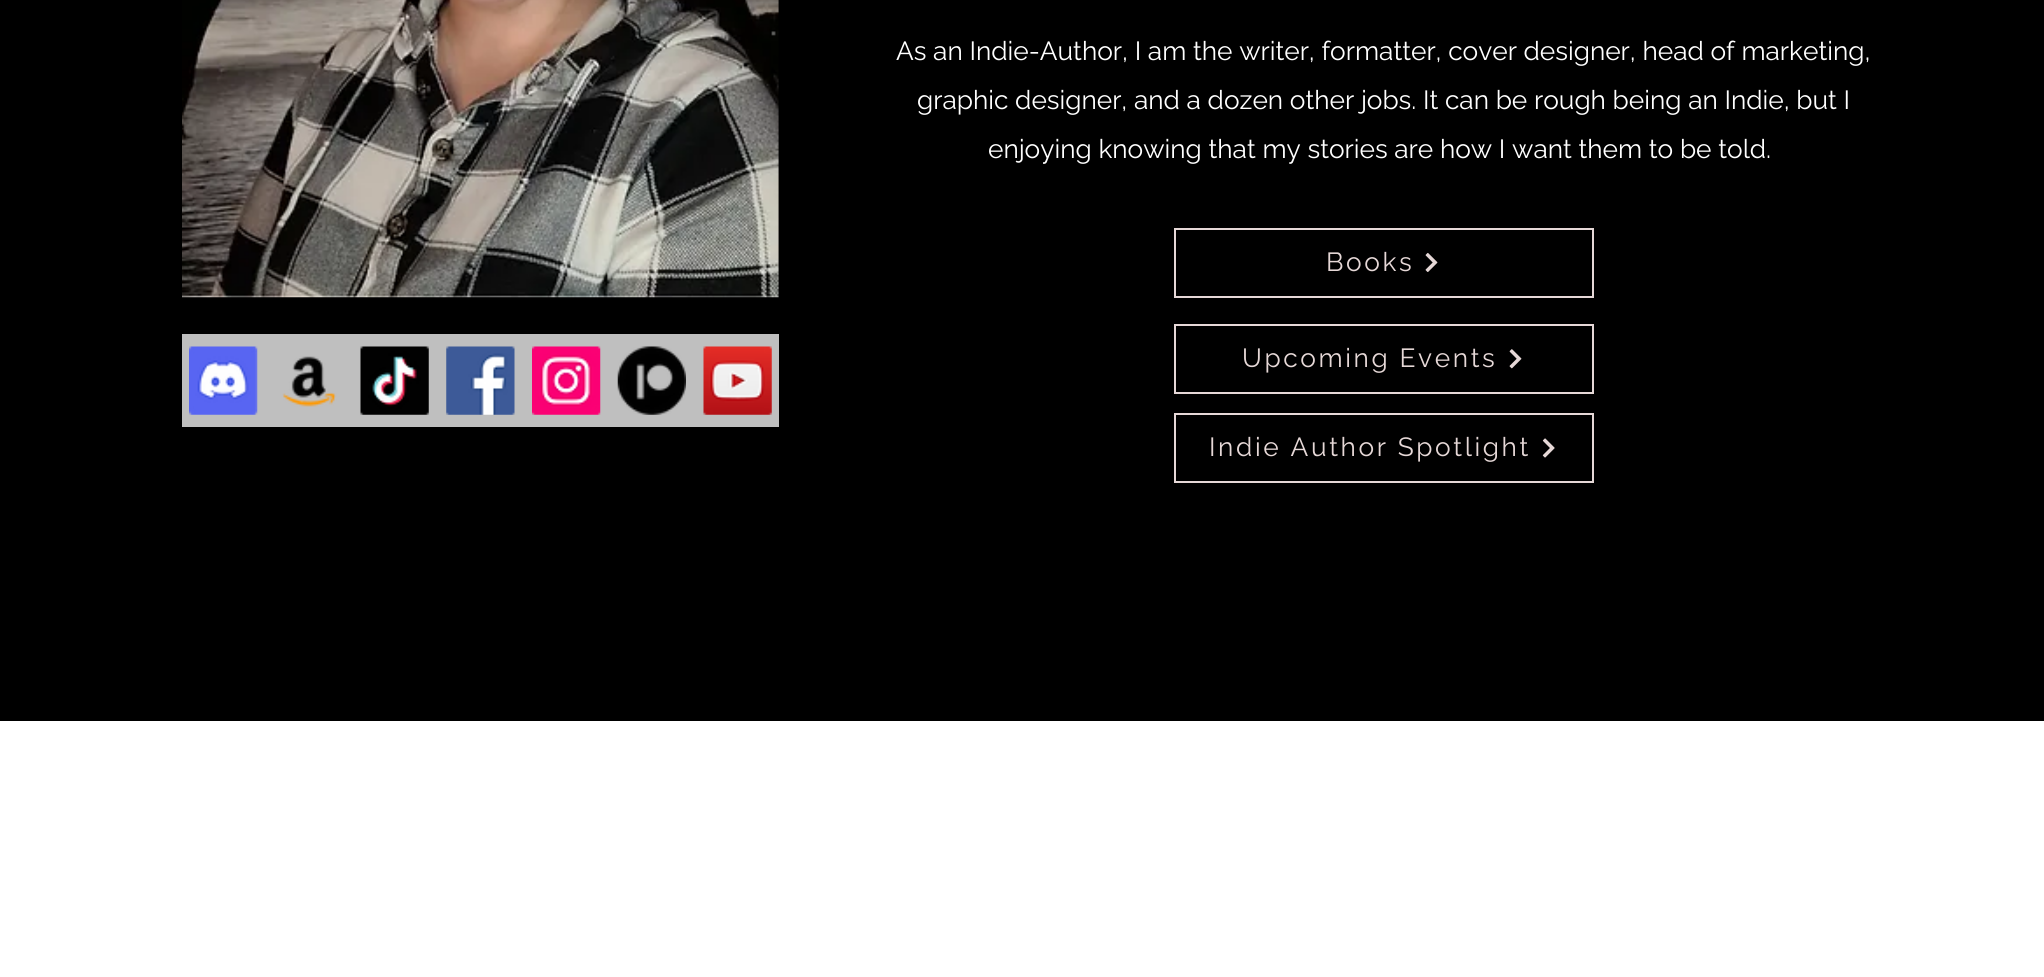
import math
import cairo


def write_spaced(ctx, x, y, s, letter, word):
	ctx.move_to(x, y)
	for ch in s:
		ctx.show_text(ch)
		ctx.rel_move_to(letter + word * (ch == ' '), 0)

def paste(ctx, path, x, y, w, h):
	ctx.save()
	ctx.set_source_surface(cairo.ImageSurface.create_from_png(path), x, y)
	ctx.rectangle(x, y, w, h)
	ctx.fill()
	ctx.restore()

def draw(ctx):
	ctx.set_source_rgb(1, 1, 1)
	ctx.paint()
	ctx.set_source_rgb(0, 0, 0)
	ctx.rectangle(0, 0, 2044, 721)
	ctx.fill()
	paste(ctx, 'media/1.png', 182, 0, 597, 298)
	ctx.select_font_face('Raleway')
	ctx.set_font_size(26.25)
	ctx.set_source_rgb(1, 1, 1)
	for x, y, s in [
		(896, 60, 'As an Indie-Author, I am the writer, formatter, cover designer, head of marketing,'),
		(917, 109, 'graphic designer, and a dozen other jobs. It can be rough being an Indie, but I'),
		(988, 158, 'enjoying knowing that my stories are how I want them to be told.'),
	]:
		ctx.move_to(x, y)
		ctx.show_text(s)
	ctx.rectangle(1175, 229, 418, 68)
	ctx.set_source_rgb(0.902, 0.847, 0.843)
	ctx.stroke()
	write_spaced(ctx, 1326, 271, 'Books', 2.6, 0)
	paste(ctx, 'media/2.png', 1425, 252, 13, 20)
	ctx.set_source_rgb(0.749, 0.749, 0.749)
	ctx.rectangle(182, 334, 597, 93)
	ctx.fill()
	paste(ctx, 'media/3.png', 189, 346, 69, 69)
	paste(ctx, 'media/4.png', 282, 356, 55, 51)
	paste(ctx, 'media/5.png', 360, 346, 69, 69)
	paste(ctx, 'media/6.png', 446, 346, 69, 69)
	paste(ctx, 'media/7.png', 532, 346, 69, 69)
	paste(ctx, 'media/8.png', 617, 346, 69, 69)
	paste(ctx, 'media/9.png', 703, 346, 69, 69)
	ctx.rectangle(1175, 325, 418, 68)
	ctx.set_source_rgb(0.902, 0.847, 0.843)
	ctx.stroke()
	write_spaced(ctx, 1242, 367, 'Upcoming Events', 2.6, 0)
	paste(ctx, 'media/10.png', 1509, 349, 13, 20)
	ctx.rectangle(1175, 414, 418, 68)
	ctx.stroke()
	write_spaced(ctx, 1209, 456, 'Indie Author Spotlight', 2.6, 0)
	paste(ctx, 'media/11.png', 1542, 438, 13, 20)


surface = cairo.ImageSurface(cairo.FORMAT_RGB24, 2044, 977)
ctx = cairo.Context(surface)
options = cairo.FontOptions()
options.set_hint_metrics(cairo.HINT_METRICS_OFF)
options.set_hint_style(cairo.HINT_STYLE_NONE)
ctx.set_font_options(options)
ctx.set_miter_limit(4)
draw(ctx)
surface.write_to_png('image.png')
